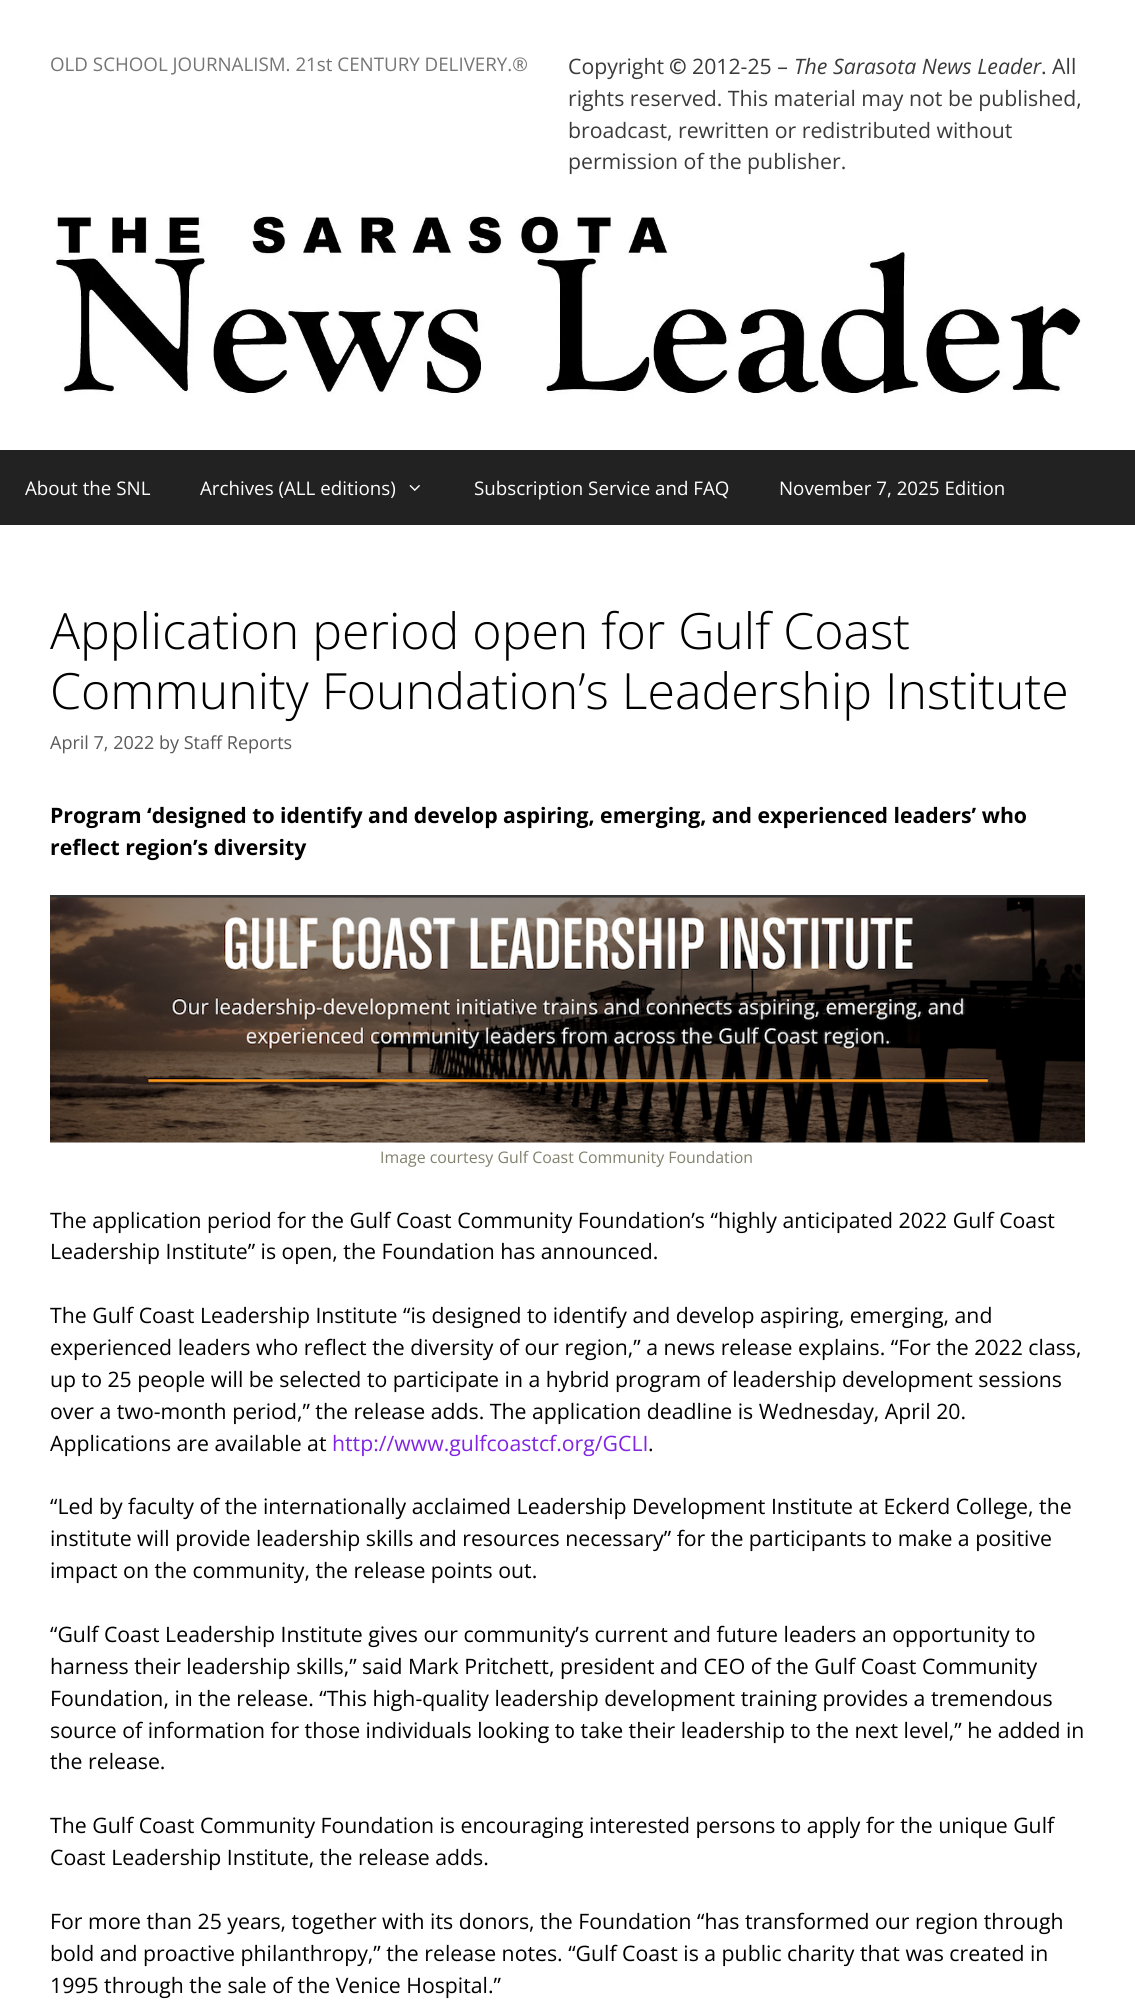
import math
import cairo


def paste(ctx, path, x, y, w, h):
	ctx.save()
	ctx.set_source_surface(cairo.ImageSurface.create_from_png(path), x, y)
	ctx.rectangle(x, y, w, h)
	ctx.fill()
	ctx.restore()

def draw(ctx):
	ctx.set_source_rgb(1, 1, 1)
	ctx.paint()
	ctx.select_font_face('Open Sans')
	ctx.set_font_size(18.75)
	ctx.set_source_rgb(0.459, 0.459, 0.459)
	ctx.move_to(50, 71)
	ctx.show_text('OLD SCHOOL JOURNALISM. 21st CENTURY DELIVERY.®')
	ctx.set_font_size(21.25)
	ctx.set_source_rgb(0.227, 0.227, 0.227)
	ctx.move_to(568, 74)
	ctx.show_text('Copyright')
	ctx.select_font_face('Open Sans', cairo.FONT_SLANT_NORMAL, cairo.FONT_WEIGHT_BOLD)
	ctx.move_to(669, 74)
	ctx.show_text('©')
	ctx.select_font_face('Open Sans')
	ctx.move_to(692, 74)
	ctx.show_text('2012-25 –')
	ctx.select_font_face('Open Sans', cairo.FONT_SLANT_ITALIC)
	ctx.move_to(794, 74)
	ctx.show_text('The Sarasota News Leader')
	ctx.select_font_face('Open Sans')
	for x, y, s in [
		(1041, 74, '. All'),
		(568, 106, 'rights reserved. This material may not be published,'),
		(568, 138, 'broadcast, rewritten or redistributed without'),
		(568, 169, 'permission of the publisher.'),
	]:
		ctx.move_to(x, y)
		ctx.show_text(s)
	paste(ctx, 'media/1.png', 55, 215, 1026, 179)
	ctx.set_source_rgb(0.133, 0.133, 0.133)
	ctx.rectangle(0, 450, 1135, 75)
	ctx.fill()
	ctx.set_font_size(18.75)
	ctx.set_source_rgb(1, 1, 1)
	ctx.move_to(25, 495)
	ctx.show_text('About the SNL')
	ctx.move_to(200, 495)
	ctx.show_text('Archives (ALL editions)')
	paste(ctx, 'media/2.png', 409, 485, 11, 6)
	ctx.move_to(474, 495)
	ctx.show_text('Subscription Service and FAQ')
	ctx.move_to(779, 495)
	ctx.show_text('November 7, 2025 Edition')
	ctx.select_font_face('Open Sans Light')
	ctx.set_font_size(50)
	ctx.set_source_rgb(0, 0, 0)
	ctx.move_to(50, 649)
	ctx.show_text('Application period open for Gulf Coast')
	ctx.move_to(50, 709)
	ctx.show_text('Community Foundation’s Leadership Institute')
	ctx.select_font_face('Open Sans')
	ctx.set_font_size(18)
	ctx.set_source_rgb(0.349, 0.349, 0.349)
	ctx.move_to(50, 749)
	ctx.show_text('April 7, 2022 by Staff Reports')
	ctx.select_font_face('Open Sans', cairo.FONT_SLANT_NORMAL, cairo.FONT_WEIGHT_BOLD)
	ctx.set_font_size(21.25)
	ctx.set_source_rgb(0, 0, 0)
	ctx.move_to(50, 823)
	ctx.show_text('Program ‘designed to identify and develop aspiring, emerging, and experienced leaders’ who')
	ctx.move_to(50, 855)
	ctx.show_text('reflect region’s diversity')
	paste(ctx, 'media/3.png', 50, 895, 1035, 248)
	ctx.select_font_face('Open Sans')
	ctx.set_font_size(15.9)
	ctx.set_source_rgb(0.506, 0.506, 0.427)
	ctx.move_to(380, 1163)
	ctx.show_text('Image courtesy Gulf Coast Community Foundation')
	ctx.set_font_size(21.25)
	ctx.set_source_rgb(0, 0, 0)
	for x, y, s in [
		(50, 1228, 'The application period for the Gulf Coast Community Foundation’s “highly anticipated 2022 Gulf Coast'),
		(50, 1259, 'Leadership Institute” is open, the Foundation has announced.'),
		(50, 1323, 'The Gulf Coast Leadership Institute “is designed to identify and develop aspiring, emerging, and'),
		(50, 1355, 'experienced leaders who reflect the diversity of our region,” a news release explains. “For the 2022 class,'),
		(50, 1387, 'up to 25 people will be selected to participate in a hybrid program of leadership development sessions'),
		(50, 1419, 'over a two-month period,” the release adds. The application deadline is Wednesday, April 20.'),
		(50, 1451, 'Applications are available at'),
	]:
		ctx.move_to(x, y)
		ctx.show_text(s)
	ctx.set_source_rgb(0.51, 0.141, 0.89)
	ctx.move_to(332, 1451)
	ctx.show_text('http://www.gulfcoastcf.org/GCLI')
	ctx.set_source_rgb(0, 0, 0)
	for x, y, s in [
		(648, 1451, '.'),
		(50, 1514, '“Led by faculty of the internationally acclaimed Leadership Development Institute at Eckerd College, the'),
		(50, 1546, 'institute will provide leadership skills and resources necessary” for the participants to make a positive'),
		(50, 1578, 'impact on the community, the release points out.'),
		(50, 1642, '“Gulf Coast Leadership Institute gives our community’s current and future leaders an opportunity to'),
		(50, 1674, 'harness their leadership skills,” said Mark Pritchett, president and CEO of the Gulf Coast Community'),
		(50, 1706, 'Foundation, in the release. “This high-quality leadership development training provides a tremendous'),
		(50, 1738, 'source of information for those individuals looking to take their leadership to the next level,” he added in'),
		(50, 1769, 'the release.'),
		(50, 1833, 'The Gulf Coast Community Foundation is encouraging interested persons to apply for the unique Gulf'),
		(50, 1865, 'Coast Leadership Institute, the release adds.'),
		(50, 1929, 'For more than 25 years, together with its donors, the Foundation “has transformed our region through'),
		(50, 1961, 'bold and proactive philanthropy,” the release notes. “Gulf Coast is a public charity that was created in'),
		(50, 1993, '1995 through the sale of the Venice Hospital.”'),
	]:
		ctx.move_to(x, y)
		ctx.show_text(s)


surface = cairo.ImageSurface(cairo.FORMAT_RGB24, 1135, 2003)
ctx = cairo.Context(surface)
options = cairo.FontOptions()
options.set_hint_metrics(cairo.HINT_METRICS_OFF)
options.set_hint_style(cairo.HINT_STYLE_NONE)
ctx.set_font_options(options)
ctx.set_miter_limit(4)
draw(ctx)
surface.write_to_png('image.png')
